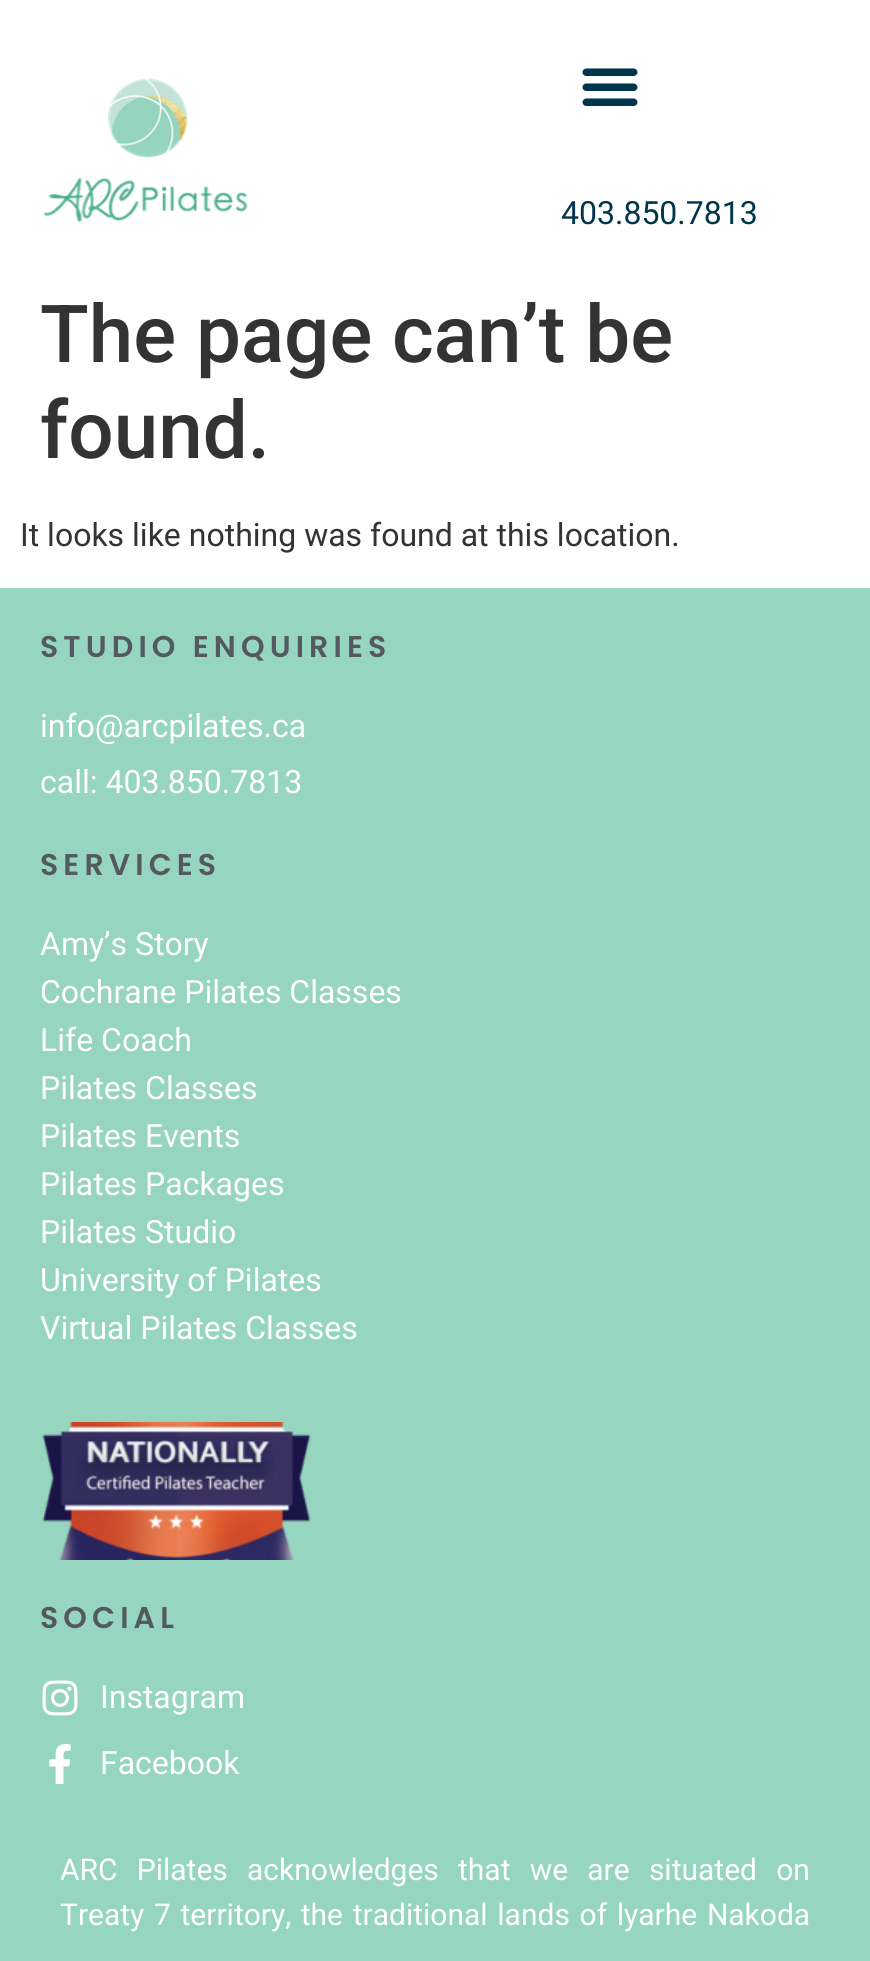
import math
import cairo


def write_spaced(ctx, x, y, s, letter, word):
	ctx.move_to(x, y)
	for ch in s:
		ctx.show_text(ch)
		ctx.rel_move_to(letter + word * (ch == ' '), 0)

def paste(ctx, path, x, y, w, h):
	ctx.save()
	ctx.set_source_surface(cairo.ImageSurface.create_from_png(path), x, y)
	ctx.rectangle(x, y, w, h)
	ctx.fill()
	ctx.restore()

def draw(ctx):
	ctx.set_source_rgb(1, 1, 1)
	ctx.paint()
	paste(ctx, 'media/1.png', 44, 78, 204, 144)
	paste(ctx, 'media/2.png', 582, 68, 56, 38)
	ctx.select_font_face('Roboto')
	ctx.set_font_size(32)
	ctx.set_source_rgb(0, 0.208, 0.298)
	ctx.move_to(561, 224)
	ctx.show_text('403.850.7813')
	ctx.select_font_face('Roboto Medium')
	ctx.set_font_size(80)
	ctx.set_source_rgb(0.2, 0.2, 0.2)
	ctx.move_to(40, 362)
	ctx.show_text('The page can’t be')
	ctx.move_to(40, 458)
	ctx.show_text('found.')
	ctx.select_font_face('Roboto')
	ctx.set_font_size(32)
	ctx.move_to(20, 546)
	ctx.show_text('It looks like nothing was found at this location.')
	ctx.set_source_rgb(0.588, 0.835, 0.753)
	ctx.rectangle(0, 588, 870, 1373)
	ctx.fill()
	ctx.select_font_face('Poppins SemiBold')
	ctx.set_font_size(30)
	ctx.set_source_rgb(0.329, 0.349, 0.373)
	write_spaced(ctx, 40, 657, 'STUDIO ENQUIRIES', 5.1, 0)
	ctx.select_font_face('Roboto')
	ctx.set_font_size(32)
	ctx.set_source_rgb(1, 1, 1)
	ctx.move_to(40, 737)
	ctx.show_text('info@arcpilates.ca')
	ctx.move_to(40, 793)
	ctx.show_text('call: 403.850.7813')
	ctx.select_font_face('Poppins SemiBold')
	ctx.set_font_size(30)
	ctx.set_source_rgb(0.329, 0.349, 0.373)
	write_spaced(ctx, 40, 875, 'SERVICES', 5.1, 0)
	ctx.select_font_face('Roboto')
	ctx.set_font_size(32)
	ctx.set_source_rgb(1, 1, 1)
	for x, y, s in [
		(40, 955, 'Amy’s Story'),
		(40, 1003, 'Cochrane Pilates Classes'),
		(40, 1051, 'Life Coach'),
		(40, 1099, 'Pilates Classes'),
		(40, 1147, 'Pilates Events'),
		(40, 1195, 'Pilates Packages'),
		(40, 1243, 'Pilates Studio'),
		(40, 1291, 'University of Pilates'),
		(40, 1339, 'Virtual Pilates Classes'),
	]:
		ctx.move_to(x, y)
		ctx.show_text(s)
	paste(ctx, 'media/3.png', 42, 1422, 269, 138)
	ctx.select_font_face('Poppins SemiBold')
	ctx.set_font_size(30)
	ctx.set_source_rgb(0.329, 0.349, 0.373)
	write_spaced(ctx, 40, 1628, 'SOCIAL', 5.1, 0)
	paste(ctx, 'media/4.png', 42, 1680, 36, 36)
	ctx.select_font_face('Roboto')
	ctx.set_font_size(32)
	ctx.set_source_rgb(1, 1, 1)
	ctx.move_to(100, 1708)
	ctx.show_text('Instagram')
	paste(ctx, 'media/5.png', 49, 1744, 22, 40)
	ctx.move_to(100, 1774)
	ctx.show_text('Facebook')
	ctx.set_font_size(30)
	write_spaced(ctx, 60, 1880, 'ARC Pilates acknowledges that we are situated on', 0, 11.75)
	write_spaced(ctx, 60, 1925, 'Treaty 7 territory, the traditional lands of lyarhe Nakoda', 0, 2.25)


surface = cairo.ImageSurface(cairo.FORMAT_RGB24, 870, 1961)
ctx = cairo.Context(surface)
options = cairo.FontOptions()
options.set_hint_metrics(cairo.HINT_METRICS_OFF)
options.set_hint_style(cairo.HINT_STYLE_NONE)
ctx.set_font_options(options)
ctx.set_miter_limit(4)
draw(ctx)
surface.write_to_png('image.png')
